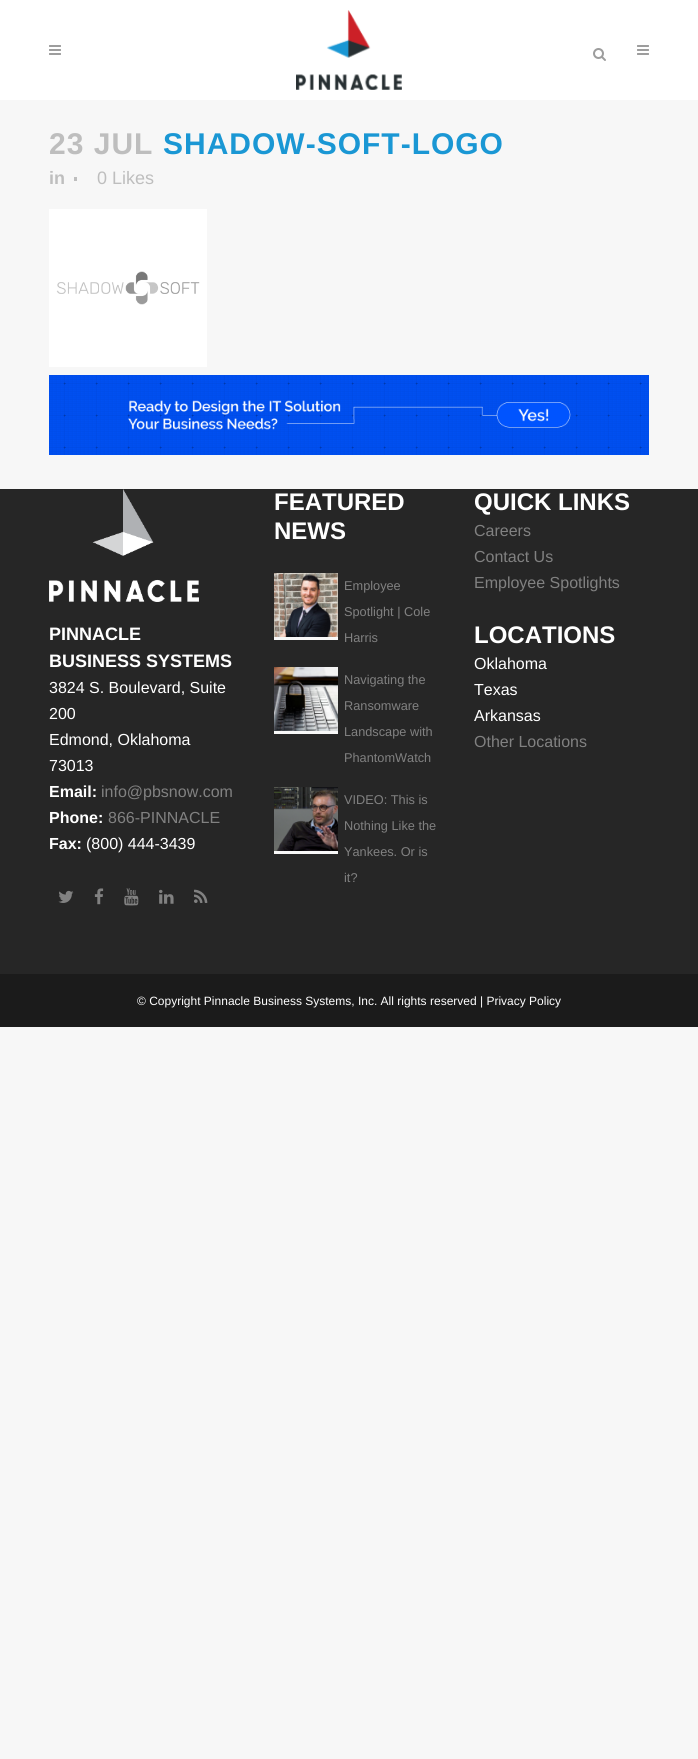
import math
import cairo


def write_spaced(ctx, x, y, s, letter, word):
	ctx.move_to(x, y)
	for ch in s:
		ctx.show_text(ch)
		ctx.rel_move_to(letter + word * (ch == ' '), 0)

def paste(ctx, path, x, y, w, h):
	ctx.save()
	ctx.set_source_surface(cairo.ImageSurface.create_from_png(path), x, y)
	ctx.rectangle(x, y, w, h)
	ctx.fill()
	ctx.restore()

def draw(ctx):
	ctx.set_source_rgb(0.965, 0.965, 0.965)
	ctx.paint()
	ctx.set_source_rgb(1, 1, 1)
	ctx.rectangle(0, 0, 698, 100)
	ctx.fill()
	paste(ctx, 'media/1.png', 49, 45, 12, 10)
	paste(ctx, 'media/2.png', 296, 10, 106, 80)
	paste(ctx, 'media/3.png', 593, 48, 13, 13)
	paste(ctx, 'media/1.png', 637, 45, 12, 10)
	ctx.select_font_face('Liberation Sans', cairo.FONT_SLANT_NORMAL, cairo.FONT_WEIGHT_BOLD)
	ctx.set_font_size(30)
	ctx.set_source_rgb(0.745, 0.745, 0.745)
	write_spaced(ctx, 49, 154, '23 JUL', 1, 0)
	ctx.set_source_rgb(0.102, 0.592, 0.831)
	write_spaced(ctx, 163, 154, 'SHADOW-SOFT-LOGO', 1, 0)
	ctx.set_font_size(18)
	ctx.set_source_rgb(0.745, 0.745, 0.745)
	ctx.move_to(49, 184)
	ctx.show_text('in')
	ctx.rectangle(74, 177, 3, 4)
	ctx.fill()
	ctx.select_font_face('Liberation Sans')
	ctx.move_to(97, 184)
	ctx.show_text('0 Likes')
	paste(ctx, 'media/4.png', 49, 209, 158, 158)
	paste(ctx, 'media/5.png', 49, 375, 600, 80)
	ctx.set_source_rgb(0.149, 0.149, 0.149)
	ctx.rectangle(0, 489, 698, 485)
	ctx.fill()
	paste(ctx, 'media/6.png', 49, 489, 150, 113)
	ctx.select_font_face('Liberation Sans', cairo.FONT_SLANT_NORMAL, cairo.FONT_WEIGHT_BOLD)
	ctx.set_source_rgb(1, 1, 1)
	ctx.move_to(49, 640)
	ctx.show_text('PINNACLE')
	ctx.move_to(49, 667)
	ctx.show_text('BUSINESS SYSTEMS')
	ctx.select_font_face('Liberation Sans')
	ctx.set_font_size(16)
	for x, y, s in [
		(49, 693, '3824 S. Boulevard, Suite'),
		(49, 719, '200'),
		(49, 745, 'Edmond, Oklahoma'),
		(49, 771, '73013'),
	]:
		ctx.move_to(x, y)
		ctx.show_text(s)
	ctx.select_font_face('Liberation Sans', cairo.FONT_SLANT_NORMAL, cairo.FONT_WEIGHT_BOLD)
	ctx.move_to(49, 797)
	ctx.show_text('Email:')
	ctx.select_font_face('Liberation Sans')
	ctx.set_source_rgb(0.506, 0.506, 0.506)
	ctx.move_to(101, 797)
	ctx.show_text('info@pbsnow.com')
	ctx.select_font_face('Liberation Sans', cairo.FONT_SLANT_NORMAL, cairo.FONT_WEIGHT_BOLD)
	ctx.set_source_rgb(1, 1, 1)
	ctx.move_to(49, 823)
	ctx.show_text('Phone:')
	ctx.select_font_face('Liberation Sans')
	ctx.set_source_rgb(0.506, 0.506, 0.506)
	ctx.move_to(108, 823)
	ctx.show_text('866-PINNACLE')
	ctx.select_font_face('Liberation Sans', cairo.FONT_SLANT_NORMAL, cairo.FONT_WEIGHT_BOLD)
	ctx.set_source_rgb(1, 1, 1)
	ctx.move_to(49, 849)
	ctx.show_text('Fax:')
	ctx.select_font_face('Liberation Sans')
	ctx.move_to(86, 849)
	ctx.show_text('(800) 444-3439')
	paste(ctx, 'media/7.png', 58, 890, 16, 13)
	paste(ctx, 'media/8.png', 94, 888, 10, 17)
	paste(ctx, 'media/9.png', 124, 888, 15, 18)
	paste(ctx, 'media/10.png', 159, 889, 15, 15)
	paste(ctx, 'media/11.png', 194, 889, 14, 14)
	ctx.select_font_face('Liberation Sans', cairo.FONT_SLANT_NORMAL, cairo.FONT_WEIGHT_BOLD)
	ctx.set_font_size(24)
	ctx.move_to(274, 510)
	ctx.show_text('FEATURED')
	ctx.move_to(274, 539)
	ctx.show_text('NEWS')
	paste(ctx, 'media/12.png', 274, 573, 64, 64)
	ctx.set_source_rgb(0.969, 0.969, 0.969)
	ctx.rectangle(274, 637, 64, 3)
	ctx.fill()
	ctx.select_font_face('Liberation Sans')
	ctx.set_font_size(12.75)
	ctx.set_source_rgb(0.506, 0.506, 0.506)
	for x, y, s in [
		(344, 590, 'Employee'),
		(344, 616, 'Spotlight | Cole'),
		(344, 642, 'Harris'),
	]:
		ctx.move_to(x, y)
		ctx.show_text(s)
	paste(ctx, 'media/13.png', 274, 667, 64, 64)
	ctx.set_source_rgb(0.969, 0.969, 0.969)
	ctx.rectangle(274, 731, 64, 3)
	ctx.fill()
	ctx.set_source_rgb(0.506, 0.506, 0.506)
	for x, y, s in [
		(344, 684, 'Navigating the'),
		(344, 710, 'Ransomware'),
		(344, 736, 'Landscape with'),
		(344, 762, 'PhantomWatch'),
	]:
		ctx.move_to(x, y)
		ctx.show_text(s)
	ctx.set_source_rgb(0.969, 0.969, 0.969)
	ctx.rectangle(274, 850, 64, 4)
	ctx.fill()
	paste(ctx, 'media/14.png', 274, 787, 64, 64)
	ctx.set_source_rgb(0.506, 0.506, 0.506)
	for x, y, s in [
		(344, 804, 'VIDEO: This is'),
		(344, 830, 'Nothing Like the'),
		(344, 856, 'Yankees. Or is'),
		(344, 882, 'it?'),
	]:
		ctx.move_to(x, y)
		ctx.show_text(s)
	ctx.select_font_face('Liberation Sans', cairo.FONT_SLANT_NORMAL, cairo.FONT_WEIGHT_BOLD)
	ctx.set_font_size(24)
	ctx.set_source_rgb(1, 1, 1)
	ctx.move_to(474, 510)
	ctx.show_text('QUICK LINKS')
	ctx.select_font_face('Liberation Sans')
	ctx.set_font_size(16)
	ctx.set_source_rgb(0.506, 0.506, 0.506)
	for x, y, s in [
		(474, 536, 'Careers'),
		(474, 562, 'Contact Us'),
		(474, 588, 'Employee Spotlights'),
	]:
		ctx.move_to(x, y)
		ctx.show_text(s)
	ctx.select_font_face('Liberation Sans', cairo.FONT_SLANT_NORMAL, cairo.FONT_WEIGHT_BOLD)
	ctx.set_font_size(24)
	ctx.set_source_rgb(1, 1, 1)
	ctx.move_to(474, 643)
	ctx.show_text('LOCATIONS')
	ctx.select_font_face('Liberation Sans')
	ctx.set_font_size(16)
	for x, y, s in [
		(474, 669, 'Oklahoma'),
		(474, 695, 'Texas'),
		(474, 721, 'Arkansas'),
	]:
		ctx.move_to(x, y)
		ctx.show_text(s)
	ctx.set_source_rgb(0.506, 0.506, 0.506)
	ctx.move_to(474, 747)
	ctx.show_text('Other Locations')
	ctx.set_source_rgb(0.106, 0.106, 0.106)
	ctx.rectangle(0, 974, 698, 53)
	ctx.fill()
	ctx.set_font_size(12)
	ctx.set_source_rgb(1, 1, 1)
	ctx.move_to(137, 1005)
	ctx.show_text('© Copyright Pinnacle Business Systems, Inc. All rights reserved | Privacy Policy')


surface = cairo.ImageSurface(cairo.FORMAT_RGB24, 698, 1759)
ctx = cairo.Context(surface)
options = cairo.FontOptions()
options.set_hint_metrics(cairo.HINT_METRICS_OFF)
options.set_hint_style(cairo.HINT_STYLE_NONE)
ctx.set_font_options(options)
ctx.set_miter_limit(4)
draw(ctx)
surface.write_to_png('image.png')
